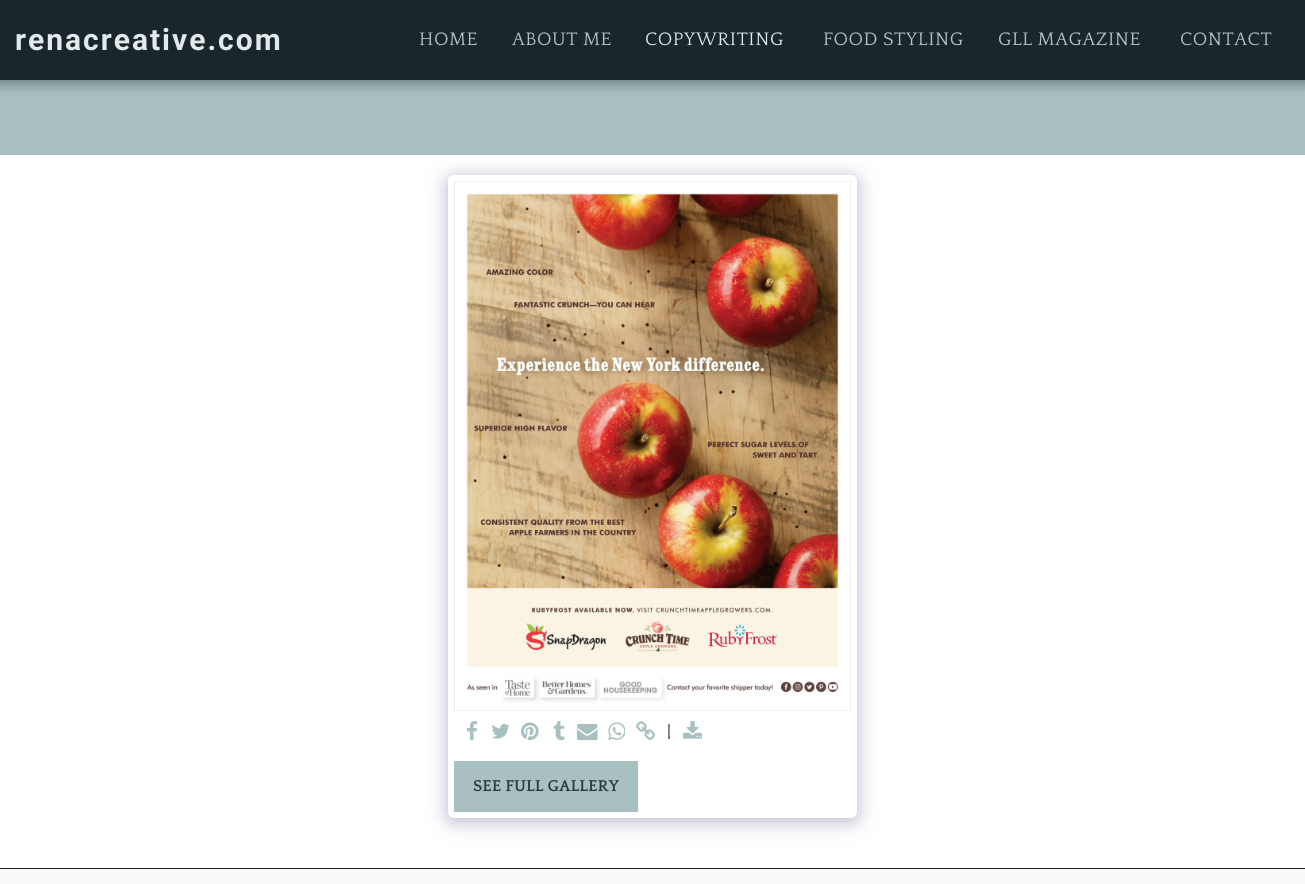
import math
import cairo


def write_spaced(ctx, x, y, s, letter, word):
	ctx.move_to(x, y)
	for ch in s:
		ctx.show_text(ch)
		ctx.rel_move_to(letter + word * (ch == ' '), 0)

def round_path(ctx, x, y, w, h, r):
	ctx.new_sub_path()
	for i, (u, v) in enumerate([(x + w - r, y + h - r), (x + r, y + h - r), (x + r, y + r), (x + w - r, y + r)]):
		ctx.arc(u, v, r, i * math.pi / 2, (i + 1) * math.pi / 2)
	ctx.close_path()

def blur_box(ctx, x, y, w, h, r, blur, alpha):
	ctx.push_group_with_content(cairo.CONTENT_ALPHA)
	ctx.set_operator(cairo.OPERATOR_SOURCE)
	for i in range(15, -16, -2):
		e = blur * i / 6
		if min(w, h) + 2 * e > 0:
			ctx.set_source_rgba(0, 0, 0, alpha * math.erfc((i - 1) / 8.5) / 2)
			round_path(ctx, x - e, y - e, w + 2 * e, h + 2 * e, max(0, min(r + e + blur * .6, min(w, h) / 2 + e)))
			ctx.fill()
	ctx.mask(ctx.pop_group())

def paste(ctx, path, x, y, w, h):
	ctx.save()
	ctx.set_source_surface(cairo.ImageSurface.create_from_png(path), x, y)
	ctx.rectangle(x, y, w, h)
	ctx.fill()
	ctx.restore()

def draw(ctx):
	ctx.set_source_rgb(0.976, 0.976, 0.976)
	ctx.paint()
	ctx.set_source_rgb(0.659, 0.753, 0.753)
	ctx.rectangle(0, 80, 1305, 75)
	ctx.fill()
	ctx.set_source_rgb(0, 0, 0)
	blur_box(ctx, -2, 0, 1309, 84, 0, 6, 0.35)
	ctx.set_source_rgb(0.106, 0.149, 0.173)
	ctx.rectangle(0, 0, 1305, 80)
	ctx.fill()
	ctx.select_font_face('Roboto', cairo.FONT_SLANT_NORMAL, cairo.FONT_WEIGHT_BOLD)
	ctx.set_font_size(30)
	ctx.set_source_rgb(0.882, 0.918, 0.918)
	write_spaced(ctx, 15, 50, 'renacreative.com', 2, 0)
	ctx.select_font_face('Quattrocento')
	ctx.set_font_size(19)
	ctx.set_source_rgb(0.725, 0.765, 0.769)
	write_spaced(ctx, 419, 45, 'HOME', 0.5, 0)
	write_spaced(ctx, 512, 45, 'ABOUT ME', 0.5, 0)
	ctx.set_source_rgb(0.882, 0.918, 0.918)
	write_spaced(ctx, 645, 45, 'COPYWRITING', 0.5, 0)
	ctx.set_source_rgb(0.725, 0.765, 0.769)
	for x, y, s in [
		(823, 45, 'FOOD STYLING'),
		(998, 45, 'GLL MAGAZINE'),
		(1180, 45, 'CONTACT'),
	]:
		write_spaced(ctx, x, y, s, 0.5, 0)
	ctx.set_source_rgb(1, 1, 1)
	ctx.rectangle(0, 155, 1305, 713)
	ctx.fill()
	ctx.set_source_rgb(0.302, 0.247, 0.478)
	blur_box(ctx, 448, 178, 409, 643, 6, 10, 0.4)
	ctx.set_source_rgb(1, 1, 1)
	round_path(ctx, 448, 175, 409, 643, 6)
	ctx.fill()
	paste(ctx, 'media/1.png', 454, 181, 397, 530)
	paste(ctx, 'media/2.png', 467, 721, 10, 20)
	paste(ctx, 'media/3.png', 491, 724, 19, 15)
	paste(ctx, 'media/4.png', 521, 722, 18, 19)
	paste(ctx, 'media/5.png', 553, 721, 12, 20)
	paste(ctx, 'media/6.png', 577, 723, 21, 18)
	paste(ctx, 'media/7.png', 608, 722, 17, 19)
	paste(ctx, 'media/8.png', 636, 721, 19, 19)
	ctx.set_font_size(16.5)
	ctx.set_source_rgb(0, 0, 0)
	ctx.move_to(667, 737)
	ctx.show_text('|')
	paste(ctx, 'media/9.png', 683, 721, 19, 18)
	ctx.set_source_rgb(0.659, 0.753, 0.753)
	ctx.rectangle(454, 761, 184, 51)
	ctx.fill()
	ctx.select_font_face('Quattrocento', cairo.FONT_SLANT_NORMAL, cairo.FONT_WEIGHT_BOLD)
	ctx.set_source_rgb(0.169, 0.231, 0.231)
	ctx.move_to(473, 791)
	ctx.show_text('SEE FULL GALLERY')
	ctx.set_source_rgb(0.106, 0.149, 0.173)
	ctx.rectangle(0, 868, 1305, 1)
	ctx.fill()


surface = cairo.ImageSurface(cairo.FORMAT_RGB24, 1305, 884)
ctx = cairo.Context(surface)
options = cairo.FontOptions()
options.set_hint_metrics(cairo.HINT_METRICS_OFF)
options.set_hint_style(cairo.HINT_STYLE_NONE)
ctx.set_font_options(options)
ctx.set_miter_limit(4)
draw(ctx)
surface.write_to_png('image.png')
